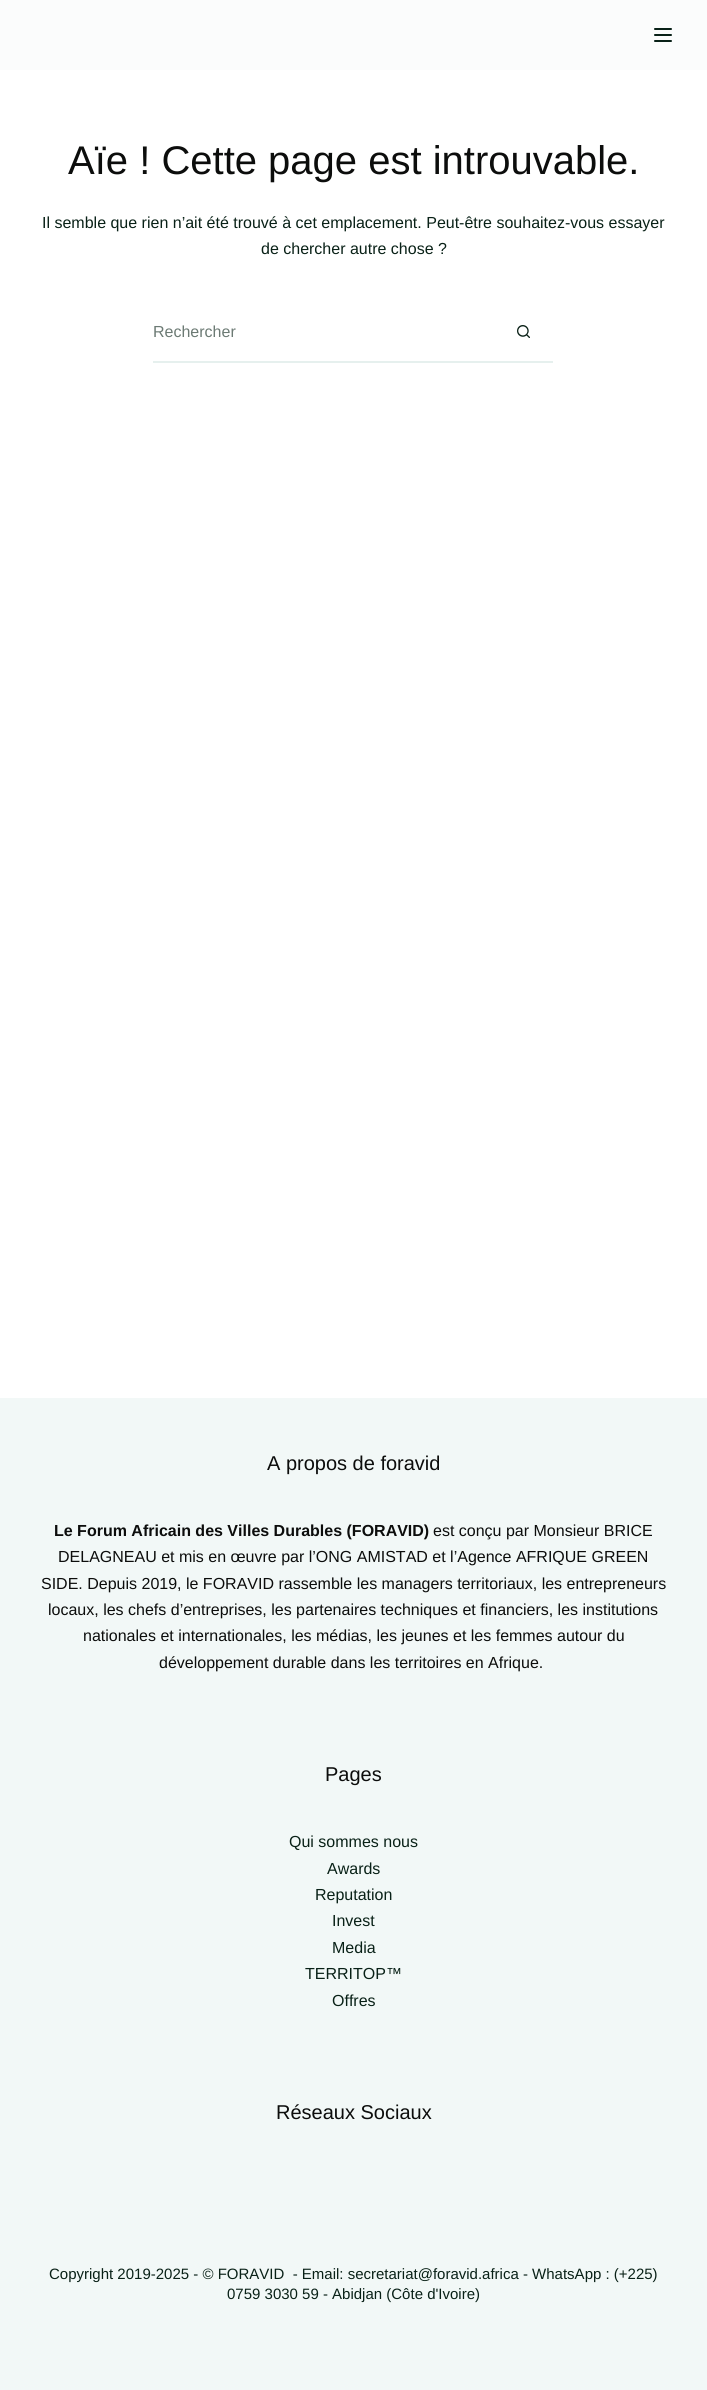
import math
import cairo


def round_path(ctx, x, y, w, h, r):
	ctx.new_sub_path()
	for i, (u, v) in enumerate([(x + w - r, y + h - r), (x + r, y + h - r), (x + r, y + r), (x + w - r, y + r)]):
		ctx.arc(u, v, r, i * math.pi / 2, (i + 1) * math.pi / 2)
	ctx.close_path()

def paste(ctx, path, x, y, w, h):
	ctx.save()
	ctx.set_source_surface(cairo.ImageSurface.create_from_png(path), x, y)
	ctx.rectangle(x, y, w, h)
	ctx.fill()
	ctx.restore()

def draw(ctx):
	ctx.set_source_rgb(1, 1, 1)
	ctx.paint()
	ctx.set_source_rgb(0.984, 0.988, 0.988)
	ctx.rectangle(0, 0, 707, 70)
	ctx.fill()
	ctx.set_source_rgb(0.039, 0.129, 0.09)
	round_path(ctx, 654, 28, 18, 2, 1)
	ctx.fill()
	round_path(ctx, 654, 34, 18, 2, 1)
	ctx.fill()
	round_path(ctx, 654, 40, 18, 2, 1)
	ctx.fill()
	ctx.select_font_face('Liberation Sans')
	ctx.set_font_size(40)
	ctx.set_source_rgb(0.047, 0.051, 0.047)
	ctx.move_to(68, 174)
	ctx.show_text('Aïe ! Cette page est introuvable.')
	ctx.set_font_size(16)
	ctx.set_source_rgb(0.039, 0.129, 0.09)
	ctx.move_to(42, 228)
	ctx.show_text('Il semble que rien n’ait été trouvé à cet emplacement. Peut-être souhaitez-vous essayer')
	ctx.move_to(261, 254)
	ctx.show_text('de chercher autre chose ?')
	ctx.set_source_rgb(0.902, 0.941, 0.933)
	ctx.rectangle(153, 361, 400, 2)
	ctx.fill()
	ctx.set_source_rgb(0.424, 0.478, 0.455)
	ctx.move_to(153, 337)
	ctx.show_text('Rechercher')
	paste(ctx, 'media/1.png', 517, 325, 13, 13)
	ctx.set_source_rgb(0.949, 0.969, 0.965)
	ctx.rectangle(0, 1398, 707, 992)
	ctx.fill()
	ctx.set_font_size(20)
	ctx.set_source_rgb(0.047, 0.051, 0.047)
	ctx.move_to(267, 1470)
	ctx.show_text('A propos de foravid')
	ctx.select_font_face('Liberation Sans', cairo.FONT_SLANT_NORMAL, cairo.FONT_WEIGHT_BOLD)
	ctx.set_font_size(16)
	ctx.move_to(54, 1536)
	ctx.show_text('Le Forum Africain des Villes Durables (FORAVID)')
	ctx.select_font_face('Liberation Sans')
	for x, y, s in [
		(433, 1536, 'est conçu par Monsieur BRICE'),
		(58, 1562, 'DELAGNEAU et mis en œuvre par l’ONG AMISTAD et l’Agence AFRIQUE GREEN'),
		(41, 1589, 'SIDE. Depuis 2019, le FORAVID rassemble les managers territoriaux, les entrepreneurs'),
		(48, 1615, 'locaux, les chefs d’entreprises, les partenaires techniques et financiers, les institutions'),
		(83, 1641, 'nationales et internationales, les médias, les jeunes et les femmes autour du'),
		(159, 1668, 'développement durable dans les territoires en Afrique.'),
	]:
		ctx.move_to(x, y)
		ctx.show_text(s)
	ctx.set_font_size(20)
	ctx.move_to(325, 1781)
	ctx.show_text('Pages')
	ctx.set_font_size(16)
	ctx.set_source_rgb(0.039, 0.129, 0.09)
	for x, y, s in [
		(289, 1847, 'Qui sommes nous'),
		(327, 1874, 'Awards'),
		(315, 1900, 'Reputation'),
		(332, 1926, 'Invest'),
		(332, 1953, 'Media'),
		(305, 1979, 'TERRITOP™'),
		(332, 2006, 'Offres'),
	]:
		ctx.move_to(x, y)
		ctx.show_text(s)
	ctx.set_font_size(20)
	ctx.set_source_rgb(0.047, 0.051, 0.047)
	ctx.move_to(276, 2119)
	ctx.show_text('Réseaux Sociaux')
	ctx.set_font_size(15)
	ctx.set_source_rgb(0.039, 0.129, 0.09)
	ctx.move_to(49, 2279)
	ctx.show_text('Copyright 2019-2025 - © FORAVID  - Email: secretariat@foravid.africa - WhatsApp : (+225)')
	ctx.move_to(227, 2299)
	ctx.show_text('0759 3030 59 - Abidjan (Côte d\'Ivoire)')


surface = cairo.ImageSurface(cairo.FORMAT_RGB24, 707, 2390)
ctx = cairo.Context(surface)
options = cairo.FontOptions()
options.set_hint_metrics(cairo.HINT_METRICS_OFF)
options.set_hint_style(cairo.HINT_STYLE_NONE)
ctx.set_font_options(options)
ctx.set_miter_limit(4)
draw(ctx)
surface.write_to_png('image.png')
